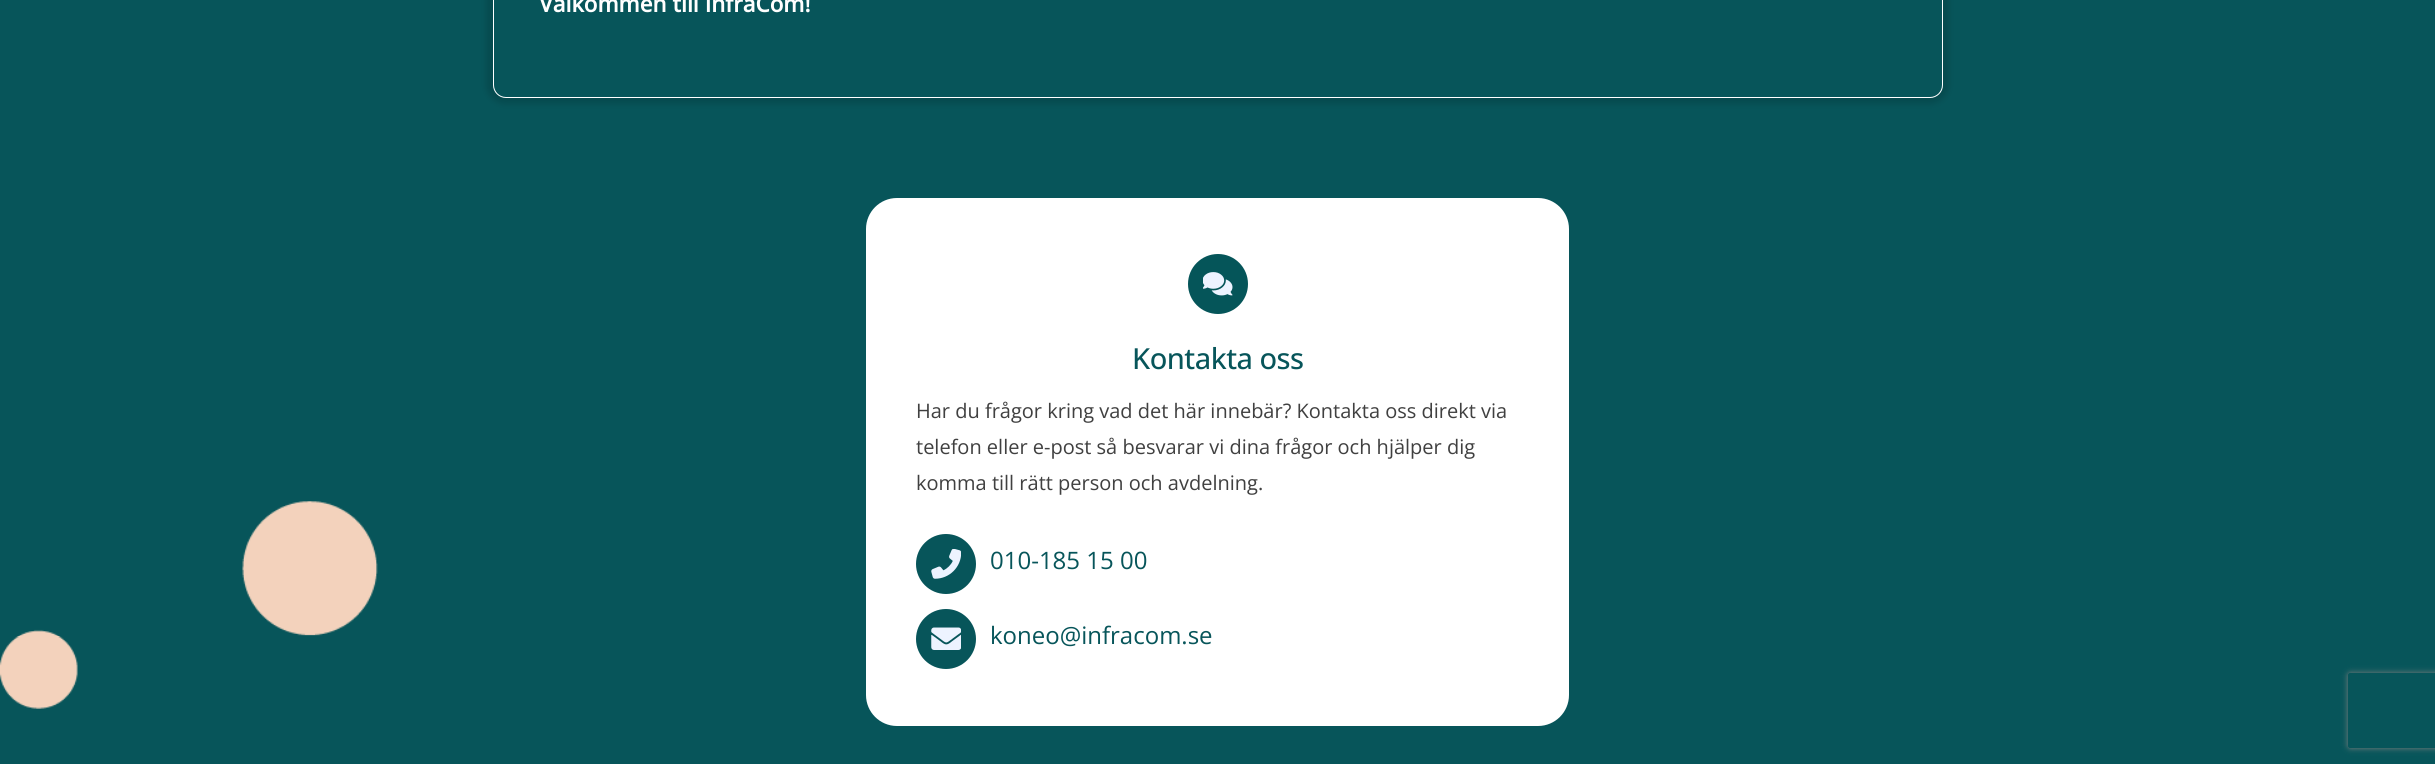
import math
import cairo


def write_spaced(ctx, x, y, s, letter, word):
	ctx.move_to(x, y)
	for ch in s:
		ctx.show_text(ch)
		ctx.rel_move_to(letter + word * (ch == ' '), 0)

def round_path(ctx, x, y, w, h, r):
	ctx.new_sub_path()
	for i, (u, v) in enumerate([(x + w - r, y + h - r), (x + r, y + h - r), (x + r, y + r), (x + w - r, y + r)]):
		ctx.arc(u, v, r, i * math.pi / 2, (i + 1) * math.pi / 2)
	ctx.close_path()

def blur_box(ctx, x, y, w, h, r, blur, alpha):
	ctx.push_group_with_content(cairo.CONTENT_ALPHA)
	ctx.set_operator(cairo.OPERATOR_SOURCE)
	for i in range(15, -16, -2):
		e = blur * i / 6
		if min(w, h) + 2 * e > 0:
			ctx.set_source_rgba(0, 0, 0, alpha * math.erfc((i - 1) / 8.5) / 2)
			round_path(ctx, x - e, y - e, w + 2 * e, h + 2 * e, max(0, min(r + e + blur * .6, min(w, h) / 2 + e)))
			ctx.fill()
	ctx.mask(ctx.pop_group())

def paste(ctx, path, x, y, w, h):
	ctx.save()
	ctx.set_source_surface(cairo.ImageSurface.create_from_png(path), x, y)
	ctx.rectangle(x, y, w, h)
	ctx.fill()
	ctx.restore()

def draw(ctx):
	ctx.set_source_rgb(0.031, 0.333, 0.353)
	ctx.paint()
	paste(ctx, 'media/1.png', 0, 501, 378, 208)
	ctx.save()
	ctx.set_fill_rule(cairo.FILL_RULE_EVEN_ODD)
	ctx.new_path()
	ctx.move_to(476, 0)
	ctx.line_to(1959, 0)
	ctx.line_to(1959, 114)
	ctx.line_to(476, 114)
	ctx.close_path()
	ctx.move_to(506, -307)
	ctx.line_to(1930, -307)
	ctx.curve_to(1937, -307, 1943, -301, 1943, -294)
	ctx.line_to(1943, 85)
	ctx.curve_to(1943, 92, 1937, 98, 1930, 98)
	ctx.line_to(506, 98)
	ctx.curve_to(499, 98, 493, 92, 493, 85)
	ctx.line_to(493, -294)
	ctx.curve_to(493, -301, 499, -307, 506, -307)
	ctx.close_path()
	ctx.clip()
	ctx.set_source_rgb(0, 0, 0)
	blur_box(ctx, 486, -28, 1463, 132, 19, 3, 0.13)
	ctx.restore()
	round_path(ctx, 493.5, -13.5, 1449, 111, 12.5)
	ctx.set_source_rgb(1, 1, 1)
	ctx.set_line_width(1)
	ctx.stroke()
	ctx.select_font_face('Open Sans', cairo.FONT_SLANT_NORMAL, cairo.FONT_WEIGHT_BOLD)
	ctx.set_font_size(22.5)
	ctx.move_to(539, 12)
	ctx.show_text('Välkommen till InfraCom!')
	round_path(ctx, 866, 198, 703, 528, 31)
	ctx.fill()
	ctx.set_source_rgb(0.02, 0.333, 0.349)
	ctx.arc(1218, 284, 30, 0, 2 * math.pi)
	ctx.fill()
	paste(ctx, 'media/2.png', 1203, 272, 30, 24)
	ctx.select_font_face('Open Sans Medium')
	ctx.set_font_size(29)
	ctx.set_source_rgb(0.031, 0.333, 0.353)
	write_spaced(ctx, 1132, 369, 'Kontakta oss', -0.5, 0)
	ctx.select_font_face('Open Sans')
	ctx.set_font_size(20)
	ctx.set_source_rgb(0.251, 0.251, 0.251)
	for x, y, s in [
		(916, 418, 'Har du frågor kring vad det här innebär? Kontakta oss direkt via'),
		(916, 454, 'telefon eller e-post så besvarar vi dina frågor och hjälper dig'),
		(916, 490, 'komma till rätt person och avdelning.'),
	]:
		ctx.move_to(x, y)
		ctx.show_text(s)
	ctx.set_source_rgb(0.031, 0.333, 0.353)
	ctx.new_path()
	ctx.arc(946, 564, 30, 0, 2 * math.pi)
	ctx.fill()
	paste(ctx, 'media/3.png', 931, 549, 30, 30)
	ctx.set_font_size(24)
	ctx.move_to(990, 569)
	ctx.show_text('010-185 15 00')
	ctx.new_path()
	ctx.arc(946, 639, 30, 0, 2 * math.pi)
	ctx.fill()
	paste(ctx, 'media/4.png', 931, 627, 30, 23)
	ctx.move_to(990, 644)
	ctx.show_text('koneo@infracom.se')
	ctx.save()
	ctx.set_fill_rule(cairo.FILL_RULE_EVEN_ODD)
	ctx.new_path()
	ctx.move_to(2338, 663)
	ctx.line_to(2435, 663)
	ctx.line_to(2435, 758)
	ctx.line_to(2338, 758)
	ctx.close_path()
	ctx.move_to(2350.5, 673)
	ctx.line_to(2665.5, 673)
	ctx.curve_to(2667, 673, 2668, 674, 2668, 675.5)
	ctx.line_to(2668, 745.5)
	ctx.curve_to(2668, 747, 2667, 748, 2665.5, 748)
	ctx.line_to(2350.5, 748)
	ctx.curve_to(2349, 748, 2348, 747, 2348, 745.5)
	ctx.line_to(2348, 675.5)
	ctx.curve_to(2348, 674, 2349, 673, 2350.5, 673)
	ctx.close_path()
	ctx.clip()
	ctx.set_source_rgb(0.502, 0.502, 0.502)
	blur_box(ctx, 2348, 673, 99, 75, 2.5, 3, 1)
	ctx.restore()


surface = cairo.ImageSurface(cairo.FORMAT_RGB24, 2435, 764)
ctx = cairo.Context(surface)
options = cairo.FontOptions()
options.set_hint_metrics(cairo.HINT_METRICS_OFF)
options.set_hint_style(cairo.HINT_STYLE_NONE)
ctx.set_font_options(options)
ctx.set_miter_limit(4)
draw(ctx)
surface.write_to_png('image.png')
